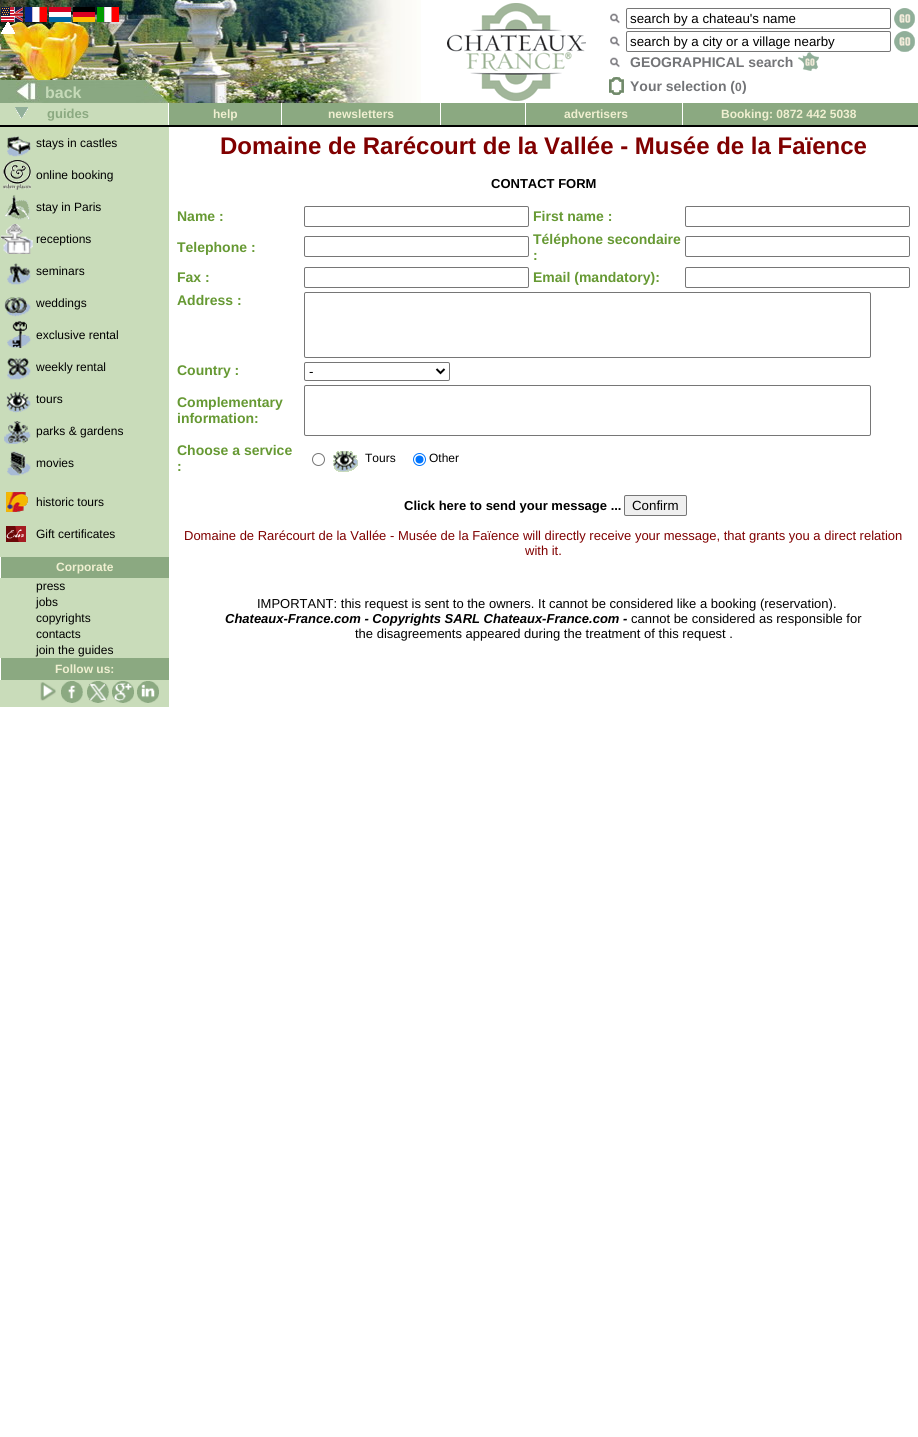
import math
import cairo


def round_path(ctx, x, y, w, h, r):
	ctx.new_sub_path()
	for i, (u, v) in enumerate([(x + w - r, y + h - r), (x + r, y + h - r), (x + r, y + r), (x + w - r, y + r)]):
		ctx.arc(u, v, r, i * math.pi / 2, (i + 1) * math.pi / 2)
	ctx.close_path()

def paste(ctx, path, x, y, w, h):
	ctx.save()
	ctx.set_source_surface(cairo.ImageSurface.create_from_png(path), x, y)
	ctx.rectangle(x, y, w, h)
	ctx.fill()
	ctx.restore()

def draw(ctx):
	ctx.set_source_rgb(1, 1, 1)
	ctx.paint()
	paste(ctx, 'media/1.png', 0, 0, 421, 103)
	paste(ctx, 'media/2.png', 1, 7, 22, 15)
	paste(ctx, 'media/3.png', 1, 22, 14, 12)
	paste(ctx, 'media/4.png', 25, 7, 22, 15)
	paste(ctx, 'media/5.png', 49, 7, 22, 15)
	paste(ctx, 'media/6.png', 73, 7, 22, 15)
	paste(ctx, 'media/7.png', 97, 7, 22, 15)
	ctx.select_font_face('Liberation Sans', cairo.FONT_SLANT_NORMAL, cairo.FONT_WEIGHT_BOLD)
	ctx.set_font_size(16)
	ctx.set_source_rgb(0.773, 0.855, 0.722)
	ctx.move_to(45, 98)
	ctx.show_text('back')
	paste(ctx, 'media/8.png', 447, 3, 139, 98)
	paste(ctx, 'media/9.png', 610, 13, 10, 11)
	round_path(ctx, 626.5, 8.5, 264, 20, 1.5)
	ctx.set_source_rgb(0.463, 0.463, 0.463)
	ctx.set_line_width(1)
	ctx.stroke()
	ctx.select_font_face('Liberation Sans')
	ctx.set_font_size(13.3)
	ctx.set_source_rgb(0, 0, 0)
	ctx.move_to(630, 23)
	ctx.show_text('search by a chateau\'s name')
	paste(ctx, 'media/10.png', 894, 8, 21, 21)
	paste(ctx, 'media/9.png', 610, 36, 10, 11)
	round_path(ctx, 626.5, 31.5, 264, 20, 1.5)
	ctx.set_source_rgb(0.463, 0.463, 0.463)
	ctx.stroke()
	ctx.set_source_rgb(0, 0, 0)
	ctx.move_to(630, 46)
	ctx.show_text('search by a city or a village nearby')
	paste(ctx, 'media/10.png', 894, 31, 21, 21)
	paste(ctx, 'media/9.png', 610, 57, 10, 11)
	ctx.select_font_face('Liberation Sans', cairo.FONT_SLANT_NORMAL, cairo.FONT_WEIGHT_BOLD)
	ctx.set_font_size(14)
	ctx.set_source_rgb(0.451, 0.455, 0.467)
	ctx.move_to(630, 67)
	ctx.show_text('GEOGRAPHICAL search')
	paste(ctx, 'media/11.png', 798, 52, 21, 19)
	paste(ctx, 'media/12.png', 609, 77, 15, 18)
	ctx.move_to(630, 91)
	ctx.show_text('Your selection (')
	ctx.set_font_size(12)
	ctx.move_to(735, 91)
	ctx.show_text('0')
	ctx.set_font_size(14)
	ctx.move_to(742, 91)
	ctx.show_text(')')
	ctx.set_source_rgb(0.788, 0.863, 0.729)
	ctx.rectangle(0, 103, 168, 22)
	ctx.fill()
	paste(ctx, 'media/13.png', 15, 107, 13, 11)
	ctx.set_font_size(13)
	ctx.set_source_rgb(0.545, 0.663, 0.506)
	ctx.move_to(47, 118)
	ctx.show_text('guides')
	ctx.rectangle(169, 103, 112, 22)
	ctx.fill()
	ctx.set_font_size(12)
	ctx.set_source_rgb(0.937, 0.937, 0.816)
	ctx.move_to(213, 118)
	ctx.show_text('help')
	ctx.set_source_rgb(0.545, 0.663, 0.506)
	ctx.rectangle(282, 103, 158, 22)
	ctx.fill()
	ctx.set_source_rgb(0.937, 0.937, 0.816)
	ctx.move_to(328, 118)
	ctx.show_text('newsletters')
	ctx.set_source_rgb(0.545, 0.663, 0.506)
	ctx.rectangle(441, 103, 84, 22)
	ctx.fill()
	ctx.rectangle(526, 103, 156, 22)
	ctx.fill()
	ctx.set_source_rgb(0.937, 0.937, 0.816)
	ctx.move_to(564, 118)
	ctx.show_text('advertisers')
	ctx.set_source_rgb(0.545, 0.663, 0.506)
	ctx.rectangle(683, 103, 235, 22)
	ctx.fill()
	ctx.set_source_rgb(0.937, 0.937, 0.816)
	ctx.move_to(721, 118)
	ctx.show_text('Booking: 0872 442 5038')
	ctx.set_source_rgb(0, 0, 0)
	ctx.rectangle(0, 125, 918, 2)
	ctx.fill()
	ctx.set_source_rgb(0.788, 0.863, 0.729)
	ctx.rectangle(0, 127, 169, 580)
	ctx.fill()
	paste(ctx, 'media/14.png', 7, 136, 24, 21)
	ctx.select_font_face('Liberation Sans')
	ctx.set_source_rgb(0, 0, 0)
	ctx.move_to(36, 147)
	ctx.show_text('stays in castles')
	paste(ctx, 'media/15.png', 3, 160, 28, 30)
	ctx.move_to(36, 179)
	ctx.show_text('online booking')
	paste(ctx, 'media/16.png', 5, 195, 26, 25)
	ctx.move_to(36, 211)
	ctx.show_text('stay in Paris')
	paste(ctx, 'media/17.png', 1, 224, 32, 30)
	ctx.move_to(36, 243)
	ctx.show_text('receptions')
	paste(ctx, 'media/18.png', 7, 263, 24, 22)
	ctx.move_to(36, 275)
	ctx.show_text('seminars')
	paste(ctx, 'media/19.png', 4, 297, 27, 20)
	ctx.move_to(36, 307)
	ctx.show_text('weddings')
	paste(ctx, 'media/20.png', 7, 321, 24, 27)
	ctx.move_to(36, 339)
	ctx.show_text('exclusive rental')
	paste(ctx, 'media/21.png', 7, 358, 24, 22)
	ctx.move_to(36, 371)
	ctx.show_text('weekly rental')
	paste(ctx, 'media/22.png', 6, 392, 25, 21)
	ctx.move_to(36, 403)
	ctx.show_text('tours')
	paste(ctx, 'media/23.png', 4, 421, 27, 23)
	ctx.move_to(36, 435)
	ctx.show_text('parks & gardens')
	paste(ctx, 'media/24.png', 7, 451, 24, 25)
	ctx.move_to(36, 467)
	ctx.show_text('movies')
	paste(ctx, 'media/25.png', 6, 492, 22, 20)
	ctx.move_to(36, 506)
	ctx.show_text('historic tours')
	paste(ctx, 'media/26.png', 6, 526, 20, 16)
	ctx.move_to(36, 538)
	ctx.show_text('Gift certificates')
	ctx.set_source_rgb(0.545, 0.663, 0.506)
	ctx.rectangle(1, 557, 168, 21)
	ctx.fill()
	ctx.set_source_rgb(1, 1, 1)
	ctx.rectangle(0, 557, 1, 21)
	ctx.fill()
	ctx.select_font_face('Liberation Sans', cairo.FONT_SLANT_NORMAL, cairo.FONT_WEIGHT_BOLD)
	ctx.set_source_rgb(0.937, 0.937, 0.816)
	ctx.move_to(56, 571)
	ctx.show_text('Corporate')
	ctx.select_font_face('Liberation Sans')
	ctx.set_source_rgb(0, 0, 0)
	for x, y, s in [
		(36, 590, 'press'),
		(36, 606, 'jobs'),
		(36, 622, 'copyrights'),
		(36, 638, 'contacts'),
		(36, 654, 'join the guides'),
	]:
		ctx.move_to(x, y)
		ctx.show_text(s)
	ctx.set_source_rgb(0.545, 0.663, 0.506)
	ctx.rectangle(1, 658, 168, 22)
	ctx.fill()
	ctx.set_source_rgb(1, 1, 1)
	ctx.rectangle(0, 658, 1, 22)
	ctx.fill()
	ctx.select_font_face('Liberation Sans', cairo.FONT_SLANT_NORMAL, cairo.FONT_WEIGHT_BOLD)
	ctx.set_source_rgb(0.937, 0.937, 0.816)
	ctx.move_to(55, 673)
	ctx.show_text('Follow us:')
	paste(ctx, 'media/27.png', 40, 682, 16, 19)
	paste(ctx, 'media/28.png', 61, 681, 22, 22)
	paste(ctx, 'media/29.png', 87, 681, 22, 22)
	paste(ctx, 'media/30.png', 112, 681, 22, 22)
	paste(ctx, 'media/31.png', 137, 681, 22, 22)
	ctx.set_font_size(24)
	ctx.set_source_rgb(0.502, 0, 0)
	ctx.move_to(220, 154)
	ctx.show_text('Domaine de Rarécourt de la Vallée - Musée de la Faïence')
	ctx.set_font_size(13)
	ctx.set_source_rgb(0, 0, 0)
	ctx.move_to(491, 188)
	ctx.show_text('CONTACT FORM')
	ctx.set_font_size(14)
	ctx.set_source_rgb(0.4, 0.6, 0.2)
	ctx.move_to(177, 221)
	ctx.show_text('Name :')
	round_path(ctx, 304.5, 206.5, 224, 20, 1.5)
	ctx.set_source_rgb(0.463, 0.463, 0.463)
	ctx.stroke()
	ctx.set_source_rgb(0.4, 0.6, 0.2)
	ctx.move_to(533, 221)
	ctx.show_text('First name :')
	round_path(ctx, 685.5, 206.5, 224, 20, 1.5)
	ctx.set_source_rgb(0.463, 0.463, 0.463)
	ctx.stroke()
	ctx.set_source_rgb(0.4, 0.6, 0.2)
	ctx.move_to(177, 252)
	ctx.show_text('Telephone :')
	round_path(ctx, 304.5, 236.5, 224, 20, 1.5)
	ctx.set_source_rgb(0.463, 0.463, 0.463)
	ctx.stroke()
	ctx.set_source_rgb(0.4, 0.6, 0.2)
	ctx.move_to(533, 244)
	ctx.show_text('Téléphone secondaire')
	ctx.move_to(533, 260)
	ctx.show_text(':')
	round_path(ctx, 685.5, 236.5, 224, 20, 1.5)
	ctx.set_source_rgb(0.463, 0.463, 0.463)
	ctx.stroke()
	ctx.set_source_rgb(0.4, 0.6, 0.2)
	ctx.move_to(177, 282)
	ctx.show_text('Fax :')
	round_path(ctx, 304.5, 267.5, 224, 20, 1.5)
	ctx.set_source_rgb(0.463, 0.463, 0.463)
	ctx.stroke()
	ctx.set_source_rgb(0.4, 0.6, 0.2)
	ctx.move_to(533, 282)
	ctx.show_text('Email (mandatory):')
	round_path(ctx, 685.5, 267.5, 224, 20, 1.5)
	ctx.set_source_rgb(0.463, 0.463, 0.463)
	ctx.stroke()
	ctx.set_source_rgb(0.4, 0.6, 0.2)
	ctx.move_to(177, 305)
	ctx.show_text('Address :')
	round_path(ctx, 304.5, 292.5, 566, 65, 1.5)
	ctx.set_source_rgb(0.463, 0.463, 0.463)
	ctx.stroke()
	ctx.set_source_rgb(0.4, 0.6, 0.2)
	ctx.move_to(177, 375)
	ctx.show_text('Country :')
	round_path(ctx, 304.5, 362.5, 145, 18, 1.5)
	ctx.set_source_rgb(0.463, 0.463, 0.463)
	ctx.stroke()
	ctx.new_path()
	ctx.move_to(436.5, 369)
	ctx.line_to(440.5, 373)
	ctx.line_to(444.5, 369)
	ctx.set_source_rgb(0, 0, 0)
	ctx.set_line_width(2)
	ctx.stroke()
	ctx.select_font_face('Liberation Sans')
	ctx.set_font_size(13.3)
	ctx.move_to(309, 376)
	ctx.show_text('-')
	ctx.select_font_face('Liberation Sans', cairo.FONT_SLANT_NORMAL, cairo.FONT_WEIGHT_BOLD)
	ctx.set_font_size(14)
	ctx.set_source_rgb(0.4, 0.6, 0.2)
	ctx.move_to(177, 407)
	ctx.show_text('Complementary')
	ctx.move_to(177, 423)
	ctx.show_text('information:')
	round_path(ctx, 304.5, 385.5, 566, 50, 1.5)
	ctx.set_source_rgb(0.463, 0.463, 0.463)
	ctx.set_line_width(1)
	ctx.stroke()
	ctx.set_source_rgb(0.4, 0.6, 0.2)
	ctx.move_to(177, 455)
	ctx.show_text('Choose a service')
	ctx.move_to(177, 471)
	ctx.show_text(':')
	ctx.new_path()
	ctx.arc(318.5, 459.5, 6, 0, 2 * math.pi)
	ctx.set_source_rgb(0.463, 0.463, 0.463)
	ctx.stroke()
	paste(ctx, 'media/32.png', 333, 451, 25, 21)
	ctx.select_font_face('Liberation Sans')
	ctx.set_font_size(12)
	ctx.set_source_rgb(0, 0, 0)
	ctx.move_to(365, 462)
	ctx.show_text('Tours')
	ctx.new_path()
	ctx.arc(419.5, 459.5, 6, 0, 2 * math.pi)
	ctx.set_source_rgb(0, 0.459, 1)
	ctx.stroke()
	ctx.arc(419.5, 459.5, 4, 0, 2 * math.pi)
	ctx.fill()
	ctx.set_source_rgb(0, 0, 0)
	ctx.move_to(429, 462)
	ctx.show_text('Other')
	ctx.select_font_face('Liberation Sans', cairo.FONT_SLANT_NORMAL, cairo.FONT_WEIGHT_BOLD)
	ctx.set_font_size(13)
	ctx.move_to(404, 510)
	ctx.show_text('Click here to send your message ...')
	ctx.set_source_rgb(0.937, 0.937, 0.937)
	round_path(ctx, 624.5, 495.5, 62, 20, 1.5)
	ctx.fill_preserve()
	ctx.set_source_rgb(0.463, 0.463, 0.463)
	ctx.stroke()
	ctx.select_font_face('Liberation Sans')
	ctx.set_font_size(13.3)
	ctx.set_source_rgb(0, 0, 0)
	ctx.move_to(632, 510)
	ctx.show_text('Confirm')
	ctx.set_font_size(13)
	ctx.set_source_rgb(0.502, 0, 0)
	ctx.move_to(184, 540)
	ctx.show_text('Domaine de Rarécourt de la Vallée - Musée de la Faïence will directly receive your message, that grants you a direct relation')
	ctx.move_to(525, 555)
	ctx.show_text('with it.')
	ctx.set_source_rgb(0, 0, 0)
	ctx.move_to(257, 608)
	ctx.show_text('IMPORTANT: this request is sent to the owners. It cannot be considered like a booking (reservation).')
	ctx.select_font_face('Liberation Sans', cairo.FONT_SLANT_ITALIC, cairo.FONT_WEIGHT_BOLD)
	ctx.move_to(225, 623)
	ctx.show_text('Chateaux-France.com - Copyrights SARL Chateaux-France.com -')
	ctx.select_font_face('Liberation Sans')
	ctx.move_to(631, 623)
	ctx.show_text('cannot be considered as responsible for')
	ctx.move_to(355, 638)
	ctx.show_text('the disagreements appeared during the treatment of this request .')


surface = cairo.ImageSurface(cairo.FORMAT_RGB24, 918, 1437)
ctx = cairo.Context(surface)
options = cairo.FontOptions()
options.set_hint_metrics(cairo.HINT_METRICS_OFF)
options.set_hint_style(cairo.HINT_STYLE_NONE)
ctx.set_font_options(options)
ctx.set_miter_limit(4)
draw(ctx)
surface.write_to_png('image.png')
